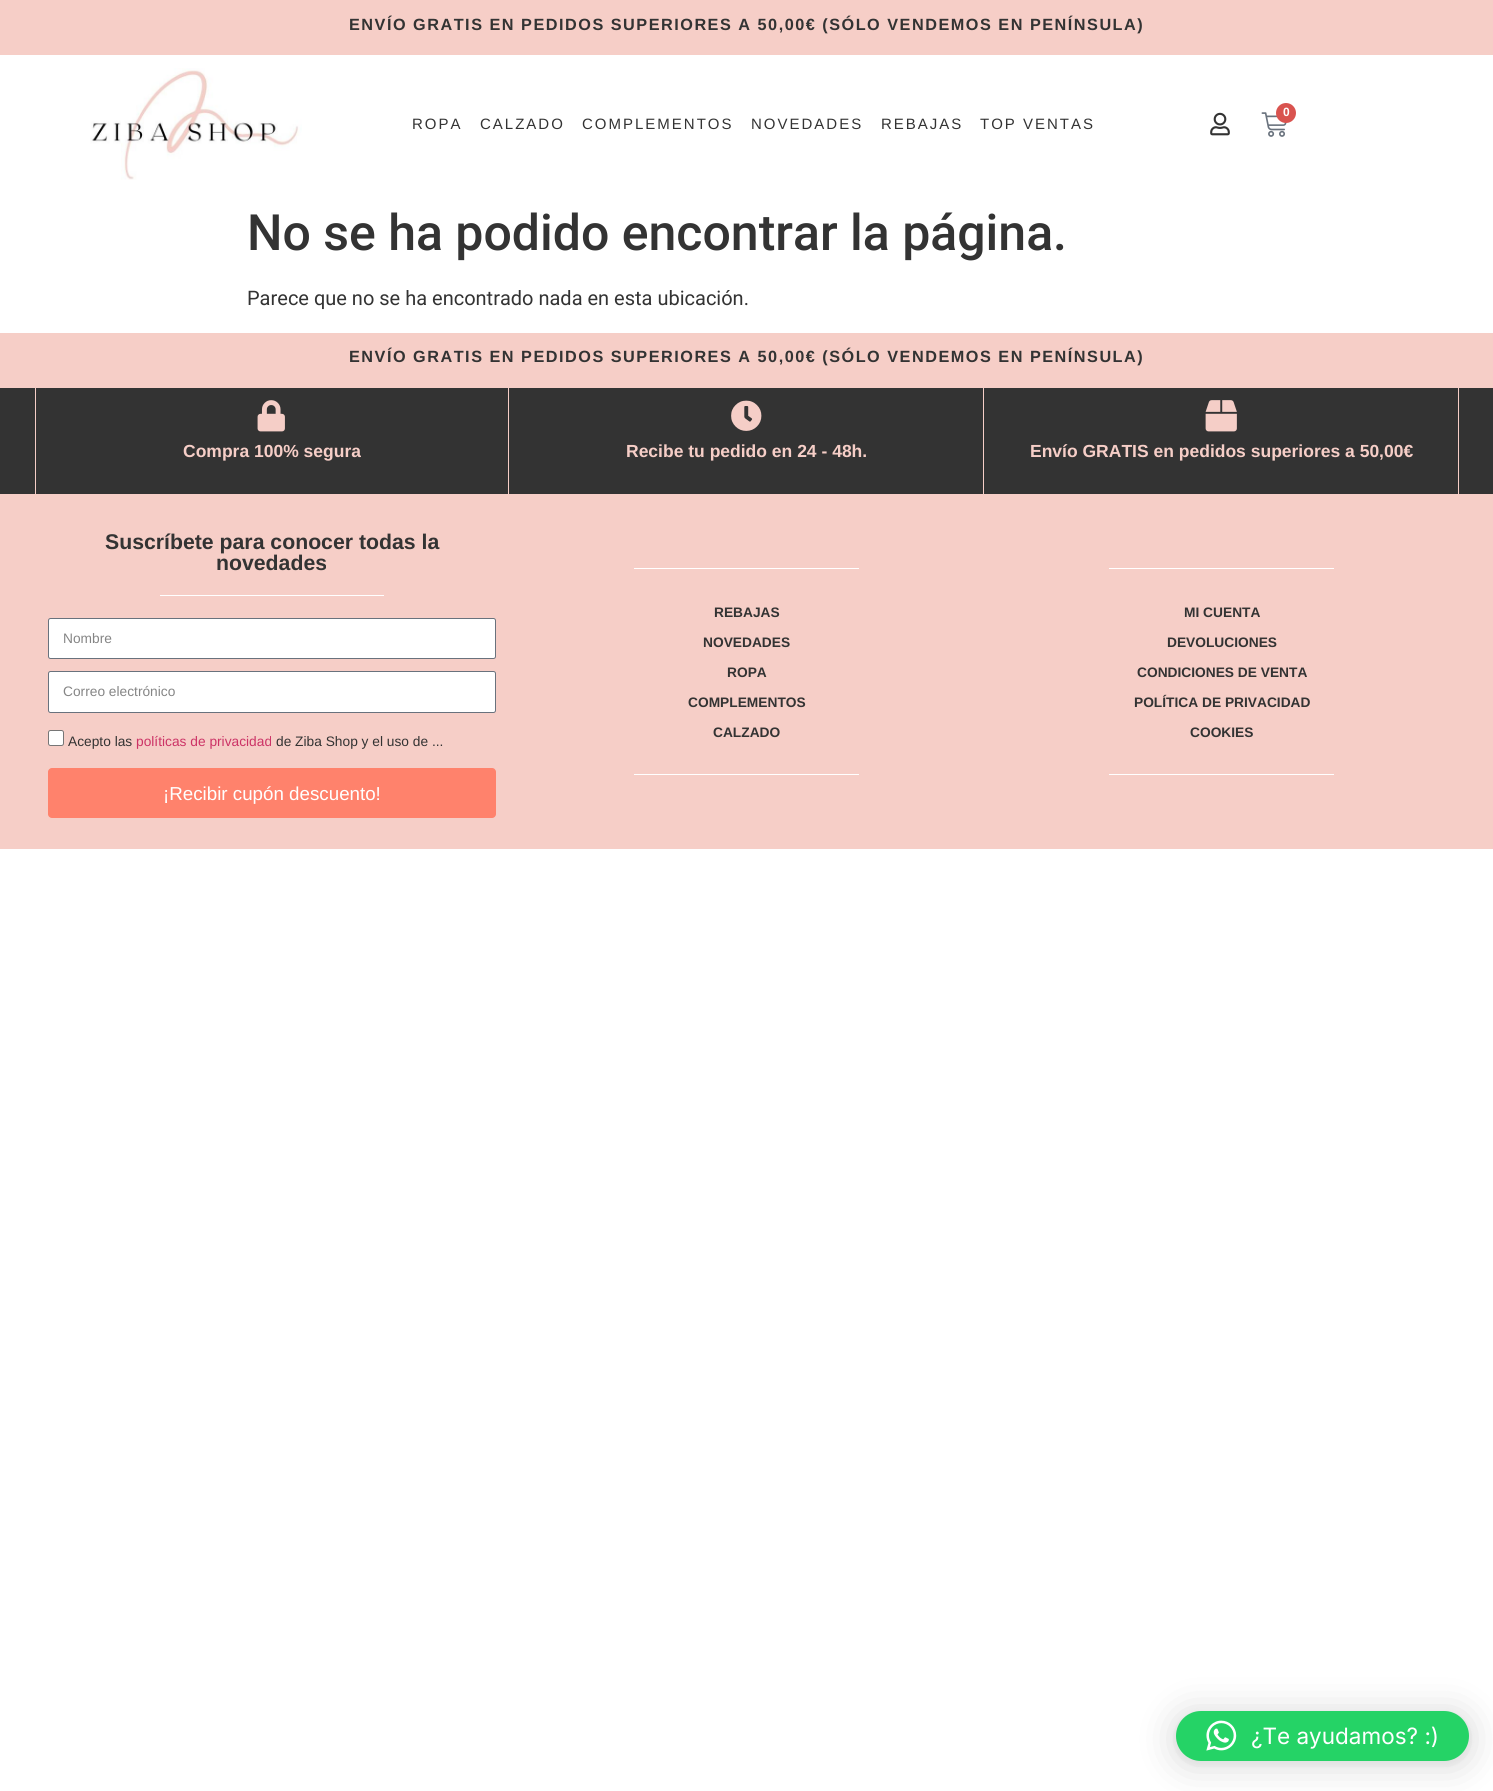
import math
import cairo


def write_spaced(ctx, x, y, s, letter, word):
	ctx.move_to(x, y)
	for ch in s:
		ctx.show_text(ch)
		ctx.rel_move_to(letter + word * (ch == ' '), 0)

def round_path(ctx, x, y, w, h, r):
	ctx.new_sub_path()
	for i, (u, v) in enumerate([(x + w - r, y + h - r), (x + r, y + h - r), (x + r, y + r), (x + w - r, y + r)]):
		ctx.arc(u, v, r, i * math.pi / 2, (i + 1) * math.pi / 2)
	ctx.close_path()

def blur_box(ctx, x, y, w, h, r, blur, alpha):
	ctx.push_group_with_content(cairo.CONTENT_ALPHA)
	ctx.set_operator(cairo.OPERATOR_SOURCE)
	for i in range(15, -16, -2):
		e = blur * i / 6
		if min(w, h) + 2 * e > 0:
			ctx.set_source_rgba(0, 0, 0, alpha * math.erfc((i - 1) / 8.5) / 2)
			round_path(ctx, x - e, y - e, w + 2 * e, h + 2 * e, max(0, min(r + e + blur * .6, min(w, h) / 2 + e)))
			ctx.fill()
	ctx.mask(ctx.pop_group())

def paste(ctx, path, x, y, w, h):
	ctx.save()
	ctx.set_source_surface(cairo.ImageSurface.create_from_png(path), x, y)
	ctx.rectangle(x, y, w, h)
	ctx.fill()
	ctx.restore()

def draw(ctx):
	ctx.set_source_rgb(1, 1, 1)
	ctx.paint()
	ctx.set_source_rgb(0.961, 0.808, 0.78)
	ctx.rectangle(0, 0, 1493, 55)
	ctx.fill()
	ctx.select_font_face('Liberation Sans', cairo.FONT_SLANT_NORMAL, cairo.FONT_WEIGHT_BOLD)
	ctx.set_font_size(16.25)
	ctx.set_source_rgb(0.2, 0.2, 0.2)
	write_spaced(ctx, 349, 30, 'ENVÍO GRATIS EN PEDIDOS SUPERIORES A 50,00€ (SÓLO VENDEMOS EN PENÍNSULA)', 1.5, 0)
	paste(ctx, 'media/1.png', 90, 68, 212, 112)
	ctx.select_font_face('Liberation Sans')
	ctx.set_font_size(15)
	for x, y, s in [
		(412, 129, 'ROPA'),
		(480, 129, 'CALZADO'),
		(582, 129, 'COMPLEMENTOS'),
		(751, 129, 'NOVEDADES'),
		(881, 129, 'REBAJAS'),
		(980, 129, 'TOP VENTAS'),
	]:
		write_spaced(ctx, x, y, s, 2, 0)
	paste(ctx, 'media/2.png', 1210, 112, 20, 24)
	paste(ctx, 'media/3.png', 1261, 112, 26, 25)
	ctx.set_source_rgb(0.851, 0.325, 0.31)
	ctx.arc(1286, 113, 10, 0, 2 * math.pi)
	ctx.fill()
	ctx.select_font_face('Liberation Sans', cairo.FONT_SLANT_NORMAL, cairo.FONT_WEIGHT_BOLD)
	ctx.set_font_size(12)
	ctx.set_source_rgb(1, 1, 1)
	ctx.move_to(1283, 116)
	ctx.show_text('0')
	ctx.select_font_face('Roboto Medium')
	ctx.set_font_size(50)
	ctx.set_source_rgb(0.2, 0.2, 0.2)
	ctx.move_to(247, 250)
	ctx.show_text('No se ha podido encontrar la página.')
	ctx.select_font_face('Roboto')
	ctx.set_font_size(20)
	ctx.move_to(247, 305)
	ctx.show_text('Parece que no se ha encontrado nada en esta ubicación.')
	ctx.set_source_rgb(0.961, 0.808, 0.78)
	ctx.rectangle(0, 333, 1493, 55)
	ctx.fill()
	ctx.select_font_face('Liberation Sans', cairo.FONT_SLANT_NORMAL, cairo.FONT_WEIGHT_BOLD)
	ctx.set_font_size(16.25)
	ctx.set_source_rgb(0.2, 0.2, 0.2)
	write_spaced(ctx, 349, 362, 'ENVÍO GRATIS EN PEDIDOS SUPERIORES A 50,00€ (SÓLO VENDEMOS EN PENÍNSULA)', 1.5, 0)
	ctx.rectangle(0, 388, 1493, 106)
	ctx.fill()
	ctx.set_source_rgb(0.961, 0.808, 0.78)
	ctx.rectangle(508, 388, 1, 106)
	ctx.rectangle(35, 388, 1, 106)
	ctx.fill()
	paste(ctx, 'media/4.png', 257, 400, 28, 32)
	ctx.set_font_size(17.5)
	ctx.move_to(183, 457)
	ctx.show_text('Compra 100% segura')
	ctx.rectangle(983, 388, 1, 106)
	ctx.fill()
	paste(ctx, 'media/5.png', 731, 400, 31, 31)
	ctx.move_to(626, 457)
	ctx.show_text('Recibe tu pedido en 24 - 48h.')
	ctx.rectangle(1458, 388, 1, 106)
	ctx.fill()
	paste(ctx, 'media/6.png', 1205, 400, 32, 32)
	ctx.move_to(1030, 457)
	ctx.show_text('Envío GRATIS en pedidos superiores a 50,00€')
	ctx.rectangle(0, 494, 1493, 355)
	ctx.fill()
	ctx.set_font_size(21.25)
	ctx.set_source_rgb(0.2, 0.2, 0.2)
	ctx.move_to(105, 549)
	ctx.show_text('Suscríbete para conocer todas la')
	ctx.move_to(216, 570)
	ctx.show_text('novedades')
	ctx.set_source_rgb(1, 1, 1)
	ctx.rectangle(160, 595, 224, 1)
	ctx.fill()
	round_path(ctx, 48.5, 618.5, 447, 40, 2)
	ctx.fill_preserve()
	ctx.set_source_rgb(0.412, 0.447, 0.49)
	ctx.set_line_width(1)
	ctx.stroke()
	ctx.select_font_face('Liberation Sans')
	ctx.set_font_size(13.75)
	ctx.set_source_rgb(0.522, 0.522, 0.522)
	ctx.move_to(63, 643)
	ctx.show_text('Nombre')
	ctx.set_source_rgb(1, 1, 1)
	round_path(ctx, 48.5, 671.5, 447, 41, 2)
	ctx.fill_preserve()
	ctx.set_source_rgb(0.412, 0.447, 0.49)
	ctx.stroke()
	ctx.set_source_rgb(0.522, 0.522, 0.522)
	ctx.move_to(63, 696)
	ctx.show_text('Correo electrónico')
	ctx.set_source_rgb(1, 1, 1)
	round_path(ctx, 48.5, 730.5, 15, 15, 2)
	ctx.fill_preserve()
	ctx.set_source_rgb(0.463, 0.463, 0.463)
	ctx.stroke()
	ctx.set_source_rgb(0.2, 0.2, 0.2)
	ctx.move_to(68, 746)
	ctx.show_text('Acepto las')
	ctx.set_source_rgb(0.8, 0.2, 0.4)
	ctx.move_to(136, 746)
	ctx.show_text('políticas de privacidad')
	ctx.set_source_rgb(0.2, 0.2, 0.2)
	ctx.move_to(276, 746)
	ctx.show_text('de Ziba Shop y el uso de ...')
	ctx.set_source_rgb(1, 0.51, 0.424)
	round_path(ctx, 48, 768, 448, 50, 4)
	ctx.fill()
	ctx.set_font_size(18.75)
	ctx.set_source_rgb(1, 1, 1)
	ctx.move_to(163, 800)
	ctx.show_text('¡Recibir cupón descuento!')
	ctx.rectangle(634, 568, 225, 1)
	ctx.fill()
	ctx.select_font_face('Liberation Sans', cairo.FONT_SLANT_NORMAL, cairo.FONT_WEIGHT_BOLD)
	ctx.set_font_size(13.75)
	ctx.set_source_rgb(0.2, 0.2, 0.2)
	for x, y, s in [
		(714, 617, 'REBAJAS'),
		(703, 647, 'NOVEDADES'),
		(727, 677, 'ROPA'),
		(688, 707, 'COMPLEMENTOS'),
		(713, 737, 'CALZADO'),
	]:
		ctx.move_to(x, y)
		ctx.show_text(s)
	ctx.set_source_rgb(1, 1, 1)
	ctx.rectangle(634, 774, 225, 1)
	ctx.fill()
	ctx.rectangle(1109, 568, 225, 1)
	ctx.fill()
	ctx.set_source_rgb(0.2, 0.2, 0.2)
	for x, y, s in [
		(1184, 617, 'MI CUENTA'),
		(1167, 647, 'DEVOLUCIONES'),
		(1137, 677, 'CONDICIONES DE VENTA'),
		(1134, 707, 'POLÍTICA DE PRIVACIDAD'),
		(1190, 737, 'COOKIES'),
	]:
		ctx.move_to(x, y)
		ctx.show_text(s)
	ctx.set_source_rgb(1, 1, 1)
	ctx.rectangle(1109, 774, 225, 1)
	ctx.fill()
	ctx.set_source_rgb(0, 0, 0)
	blur_box(ctx, 1176, 1714, 293, 50, 25, 20, 0.16)
	blur_box(ctx, 1176, 1713, 293, 50, 25, 4, 0.06)
	ctx.set_source_rgb(0.145, 0.827, 0.4)
	round_path(ctx, 1176, 1711, 293, 50, 25)
	ctx.fill()
	paste(ctx, 'media/7.png', 1206, 1720, 31, 31)
	ctx.select_font_face('Inter')
	ctx.set_font_size(22.5)
	ctx.set_source_rgb(1, 1, 1)
	ctx.move_to(1251, 1744)
	ctx.show_text('¿Te ayudamos? :)')


surface = cairo.ImageSurface(cairo.FORMAT_RGB24, 1493, 1791)
ctx = cairo.Context(surface)
options = cairo.FontOptions()
options.set_hint_metrics(cairo.HINT_METRICS_OFF)
options.set_hint_style(cairo.HINT_STYLE_NONE)
ctx.set_font_options(options)
ctx.set_miter_limit(4)
draw(ctx)
surface.write_to_png('image.png')
